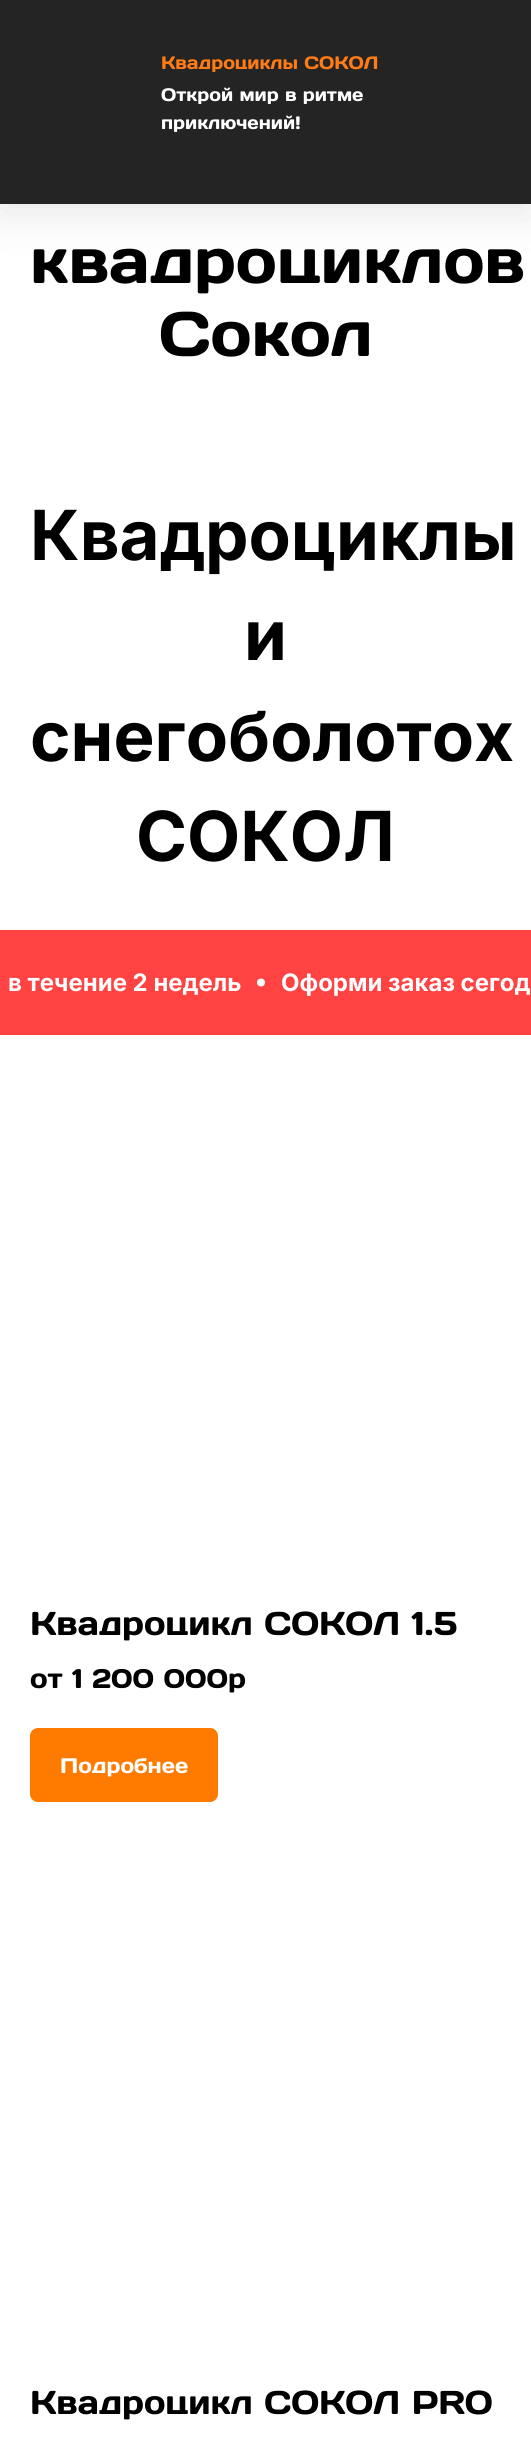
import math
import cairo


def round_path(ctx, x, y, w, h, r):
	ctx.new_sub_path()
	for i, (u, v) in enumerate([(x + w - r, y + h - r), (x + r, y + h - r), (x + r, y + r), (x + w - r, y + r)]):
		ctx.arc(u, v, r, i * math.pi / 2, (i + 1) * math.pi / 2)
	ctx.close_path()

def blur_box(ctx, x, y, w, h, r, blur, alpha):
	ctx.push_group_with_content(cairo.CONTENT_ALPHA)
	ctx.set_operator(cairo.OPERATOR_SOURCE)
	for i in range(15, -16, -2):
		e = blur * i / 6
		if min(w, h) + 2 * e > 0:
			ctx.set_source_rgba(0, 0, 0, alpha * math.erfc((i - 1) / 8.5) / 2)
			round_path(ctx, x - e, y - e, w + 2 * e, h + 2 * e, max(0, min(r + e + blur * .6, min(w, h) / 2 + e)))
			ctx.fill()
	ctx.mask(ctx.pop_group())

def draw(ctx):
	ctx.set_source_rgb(1, 1, 1)
	ctx.paint()
	ctx.set_source_rgb(0, 0, 0)
	blur_box(ctx, 0, 8, 531, 204, 0, 22.5, 0.1)
	ctx.set_source_rgb(0.141, 0.141, 0.141)
	ctx.rectangle(0, 0, 531, 204)
	ctx.fill()
	ctx.select_font_face('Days')
	ctx.set_font_size(18)
	ctx.set_source_rgb(1, 0.482, 0.086)
	ctx.move_to(161, 69)
	ctx.show_text('Квадроциклы СОКОЛ')
	ctx.set_source_rgb(1, 1, 1)
	ctx.move_to(161, 101)
	ctx.show_text('Открой мир в ритме')
	ctx.move_to(161, 129)
	ctx.show_text('приключений!')
	ctx.set_font_size(63)
	ctx.set_source_rgb(0, 0, 0)
	ctx.move_to(30, 283)
	ctx.show_text('квадроциклов')
	ctx.move_to(159, 356)
	ctx.show_text('Сокол')
	ctx.select_font_face('Inter', cairo.FONT_SLANT_NORMAL, cairo.FONT_WEIGHT_BOLD)
	ctx.set_font_size(69)
	for x, y, s in [
		(30, 560, 'Квадроциклы'),
		(244, 660, 'и'),
		(30, 761, 'снегоболотох'),
		(136, 861, 'СОКОЛ'),
	]:
		ctx.move_to(x, y)
		ctx.show_text(s)
	ctx.set_source_rgb(1, 0.259, 0.259)
	ctx.rectangle(0, 930, 531, 105)
	ctx.fill()
	ctx.set_font_size(24)
	ctx.set_source_rgb(1, 1, 1)
	ctx.move_to(8, 991)
	ctx.show_text('в течение 2 недель')
	ctx.new_path()
	ctx.arc(261, 982.5, 4, 0, 2 * math.pi)
	ctx.fill()
	ctx.move_to(281, 991)
	ctx.show_text('Оформи заказ сегод')
	ctx.select_font_face('Days')
	ctx.set_font_size(33)
	ctx.set_source_rgb(0, 0, 0)
	ctx.move_to(30, 1635)
	ctx.show_text('Квадроцикл СОКОЛ 1.5')
	ctx.set_font_size(27)
	ctx.move_to(30, 1688)
	ctx.show_text('от 1 200 000р')
	ctx.set_source_rgb(1, 0.482, 0)
	round_path(ctx, 30, 1728, 188, 74, 8)
	ctx.fill()
	ctx.set_font_size(21)
	ctx.set_source_rgb(1, 1, 1)
	ctx.move_to(60, 1773)
	ctx.show_text('Подробнее')
	ctx.set_font_size(33)
	ctx.set_source_rgb(0, 0, 0)
	ctx.move_to(30, 2414)
	ctx.show_text('Квадроцикл СОКОЛ PRO')


surface = cairo.ImageSurface(cairo.FORMAT_RGB24, 531, 2437)
ctx = cairo.Context(surface)
options = cairo.FontOptions()
options.set_hint_metrics(cairo.HINT_METRICS_OFF)
options.set_hint_style(cairo.HINT_STYLE_NONE)
ctx.set_font_options(options)
ctx.set_miter_limit(4)
draw(ctx)
surface.write_to_png('image.png')
